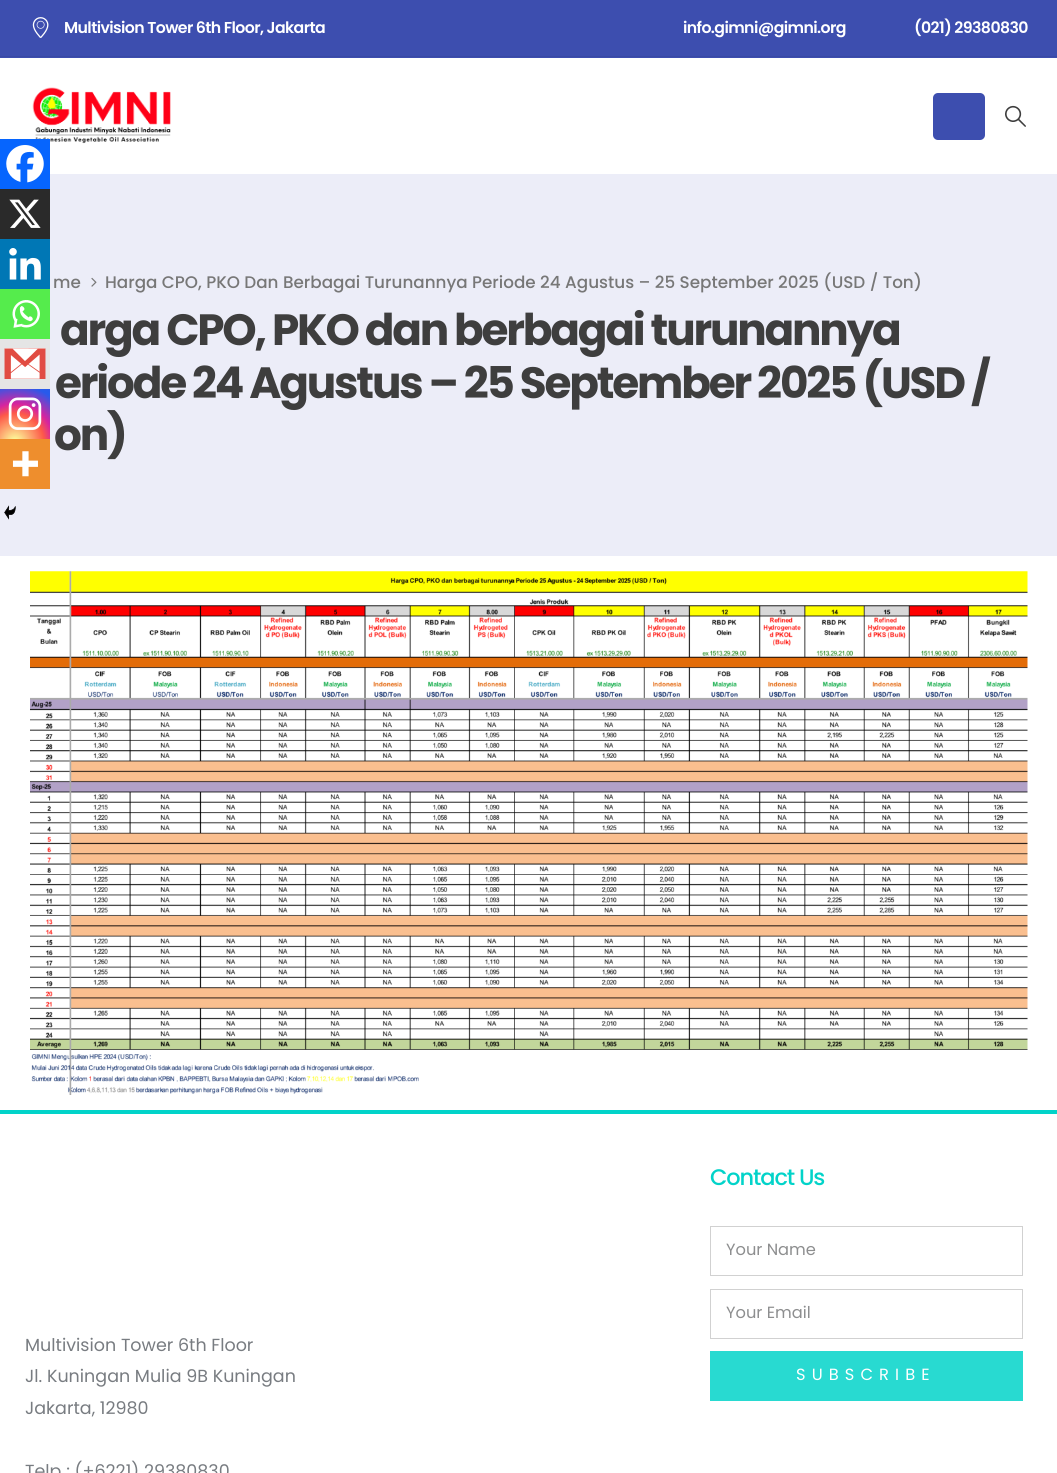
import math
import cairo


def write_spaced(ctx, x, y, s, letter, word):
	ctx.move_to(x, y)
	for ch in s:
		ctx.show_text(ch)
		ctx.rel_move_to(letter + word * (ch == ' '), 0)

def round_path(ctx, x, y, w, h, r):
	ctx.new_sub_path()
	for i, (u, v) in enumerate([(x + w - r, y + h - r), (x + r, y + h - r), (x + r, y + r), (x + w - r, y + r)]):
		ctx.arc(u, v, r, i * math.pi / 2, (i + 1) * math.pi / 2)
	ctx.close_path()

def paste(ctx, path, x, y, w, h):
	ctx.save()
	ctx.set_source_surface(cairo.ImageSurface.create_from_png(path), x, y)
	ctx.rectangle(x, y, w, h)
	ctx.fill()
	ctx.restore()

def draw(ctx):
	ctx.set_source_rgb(1, 1, 1)
	ctx.paint()
	ctx.set_source_rgb(0.239, 0.306, 0.686)
	ctx.rectangle(0, 0, 1057, 58)
	ctx.fill()
	ctx.set_source_rgb(0.224, 0.286, 0.647)
	ctx.rectangle(0, 56, 1057, 1)
	ctx.fill()
	paste(ctx, 'media/1.png', 32, 17, 17, 21)
	ctx.select_font_face('Poppins SemiBold')
	ctx.set_font_size(15.75)
	ctx.set_source_rgb(1, 1, 1)
	for x, y, s in [
		(64, 33, 'Multivision Tower 6th Floor, Jakarta'),
		(683, 33, 'info.gimni@gimni.org'),
		(914, 33, '(021) 29380830'),
	]:
		write_spaced(ctx, x, y, s, -0.6, 0)
	paste(ctx, 'media/2.png', 32, 87, 139, 57)
	ctx.set_source_rgb(0.239, 0.306, 0.686)
	round_path(ctx, 933, 93, 52, 47, 5)
	ctx.fill()
	paste(ctx, 'media/3.png', 1005, 105, 21, 22)
	ctx.set_source_rgb(0.922, 0.929, 0.969)
	ctx.rectangle(0, 174, 1057, 382)
	ctx.fill()
	ctx.set_source_rgb(0.027, 0.396, 0.996)
	ctx.rectangle(0, 139, 50, 50)
	ctx.fill()
	paste(ctx, 'media/4.png', 6, 145, 38, 38)
	ctx.set_source_rgb(0.165, 0.165, 0.165)
	ctx.rectangle(0, 189, 50, 50)
	ctx.fill()
	paste(ctx, 'media/5.png', 9, 199, 32, 29)
	ctx.set_source_rgb(0, 0.467, 0.71)
	ctx.rectangle(0, 239, 50, 50)
	ctx.fill()
	paste(ctx, 'media/6.png', 9, 248, 32, 32)
	ctx.set_source_rgb(0.333, 0.922, 0.298)
	ctx.rectangle(0, 289, 50, 50)
	ctx.fill()
	paste(ctx, 'media/7.png', 12, 300, 28, 28)
	ctx.set_source_rgb(0.898, 0.898, 0.898)
	ctx.rectangle(0, 339, 50, 50)
	ctx.fill()
	paste(ctx, 'media/8.png', 4, 348, 42, 31)
	gradient = cairo.RadialGradient(15, 442, 0, 15, 442, 64)
	gradient.add_color_stop_rgba(0, 0.992, 0.957, 0.592, 1)
	gradient.add_color_stop_rgba(0.05, 0.992, 0.957, 0.592, 1)
	gradient.add_color_stop_rgba(0.45, 0.992, 0.349, 0.286, 1)
	gradient.add_color_stop_rgba(0.6, 0.839, 0.141, 0.624, 1)
	gradient.add_color_stop_rgba(0.9, 0.157, 0.353, 0.922, 1)
	ctx.set_source(gradient)
	ctx.rectangle(0, 389, 50, 50)
	ctx.fill()
	paste(ctx, 'media/9.png', 8, 397, 34, 33)
	ctx.set_source_rgb(0.933, 0.557, 0.176)
	ctx.rectangle(0, 439, 50, 50)
	ctx.fill()
	paste(ctx, 'media/10.png', 12, 451, 26, 26)
	paste(ctx, 'media/11.png', 4, 505, 12, 15)
	paste(ctx, 'media/12.png', 30, 571, 998, 524)
	ctx.select_font_face('Poppins Medium')
	ctx.set_font_size(16.8)
	ctx.set_source_rgb(0.467, 0.467, 0.467)
	ctx.move_to(53, 288)
	ctx.show_text('me')
	paste(ctx, 'media/13.png', 91, 277, 6, 10)
	ctx.move_to(105, 288)
	ctx.show_text('Harga CPO, PKO Dan Berbagai Turunannya Periode 24 Agustus – 25 September 2025 (USD / Ton)')
	ctx.select_font_face('Poppins', cairo.FONT_SLANT_NORMAL, cairo.FONT_WEIGHT_BOLD)
	ctx.set_font_size(43.75)
	ctx.set_source_rgb(0.243, 0.243, 0.243)
	for x, y, s in [
		(60, 345, 'arga CPO, PKO dan berbagai turunannya'),
		(55, 398, 'eriode 24 Agustus – 25 September 2025 (USD /'),
		(54, 450, 'on)'),
	]:
		write_spaced(ctx, x, y, s, -2.2, 0)
	ctx.set_source_rgb(0.008, 0.827, 0.788)
	ctx.rectangle(0, 1110, 1057, 4)
	ctx.fill()
	ctx.select_font_face('Poppins Medium')
	ctx.set_font_size(22.5)
	write_spaced(ctx, 710, 1185, 'Contact Us', -1.1, 0)
	ctx.rectangle(710.5, 1226.5, 312, 49)
	ctx.set_source_rgb(0.82, 0.82, 0.82)
	ctx.set_line_width(1)
	ctx.stroke()
	ctx.select_font_face('Poppins')
	ctx.set_font_size(16.25)
	ctx.set_source_rgb(0.553, 0.557, 0.561)
	ctx.move_to(726, 1255)
	ctx.show_text('Your Name')
	ctx.rectangle(710.5, 1289.5, 312, 49)
	ctx.set_source_rgb(0.82, 0.82, 0.82)
	ctx.stroke()
	ctx.set_source_rgb(0.553, 0.557, 0.561)
	ctx.move_to(726, 1318)
	ctx.show_text('Your Email')
	ctx.set_source_rgb(0.157, 0.855, 0.82)
	ctx.rectangle(710, 1351, 313, 50)
	ctx.fill()
	ctx.set_source_rgb(1, 1, 1)
	write_spaced(ctx, 796, 1380, 'SUBSCRIBE', 6.1, 0)
	ctx.set_font_size(17.5)
	ctx.set_source_rgb(0.471, 0.486, 0.506)
	for x, y, s in [
		(25, 1351, 'Multivision Tower 6th Floor'),
		(25, 1382, 'Jl. Kuningan Mulia 9B Kuningan'),
		(25, 1414, 'Jakarta, 12980'),
		(25, 1477, 'Telp : (+6221) 29380830'),
	]:
		ctx.move_to(x, y)
		ctx.show_text(s)


surface = cairo.ImageSurface(cairo.FORMAT_RGB24, 1057, 1473)
ctx = cairo.Context(surface)
options = cairo.FontOptions()
options.set_hint_metrics(cairo.HINT_METRICS_OFF)
options.set_hint_style(cairo.HINT_STYLE_NONE)
ctx.set_font_options(options)
ctx.set_miter_limit(4)
draw(ctx)
surface.write_to_png('image.png')
